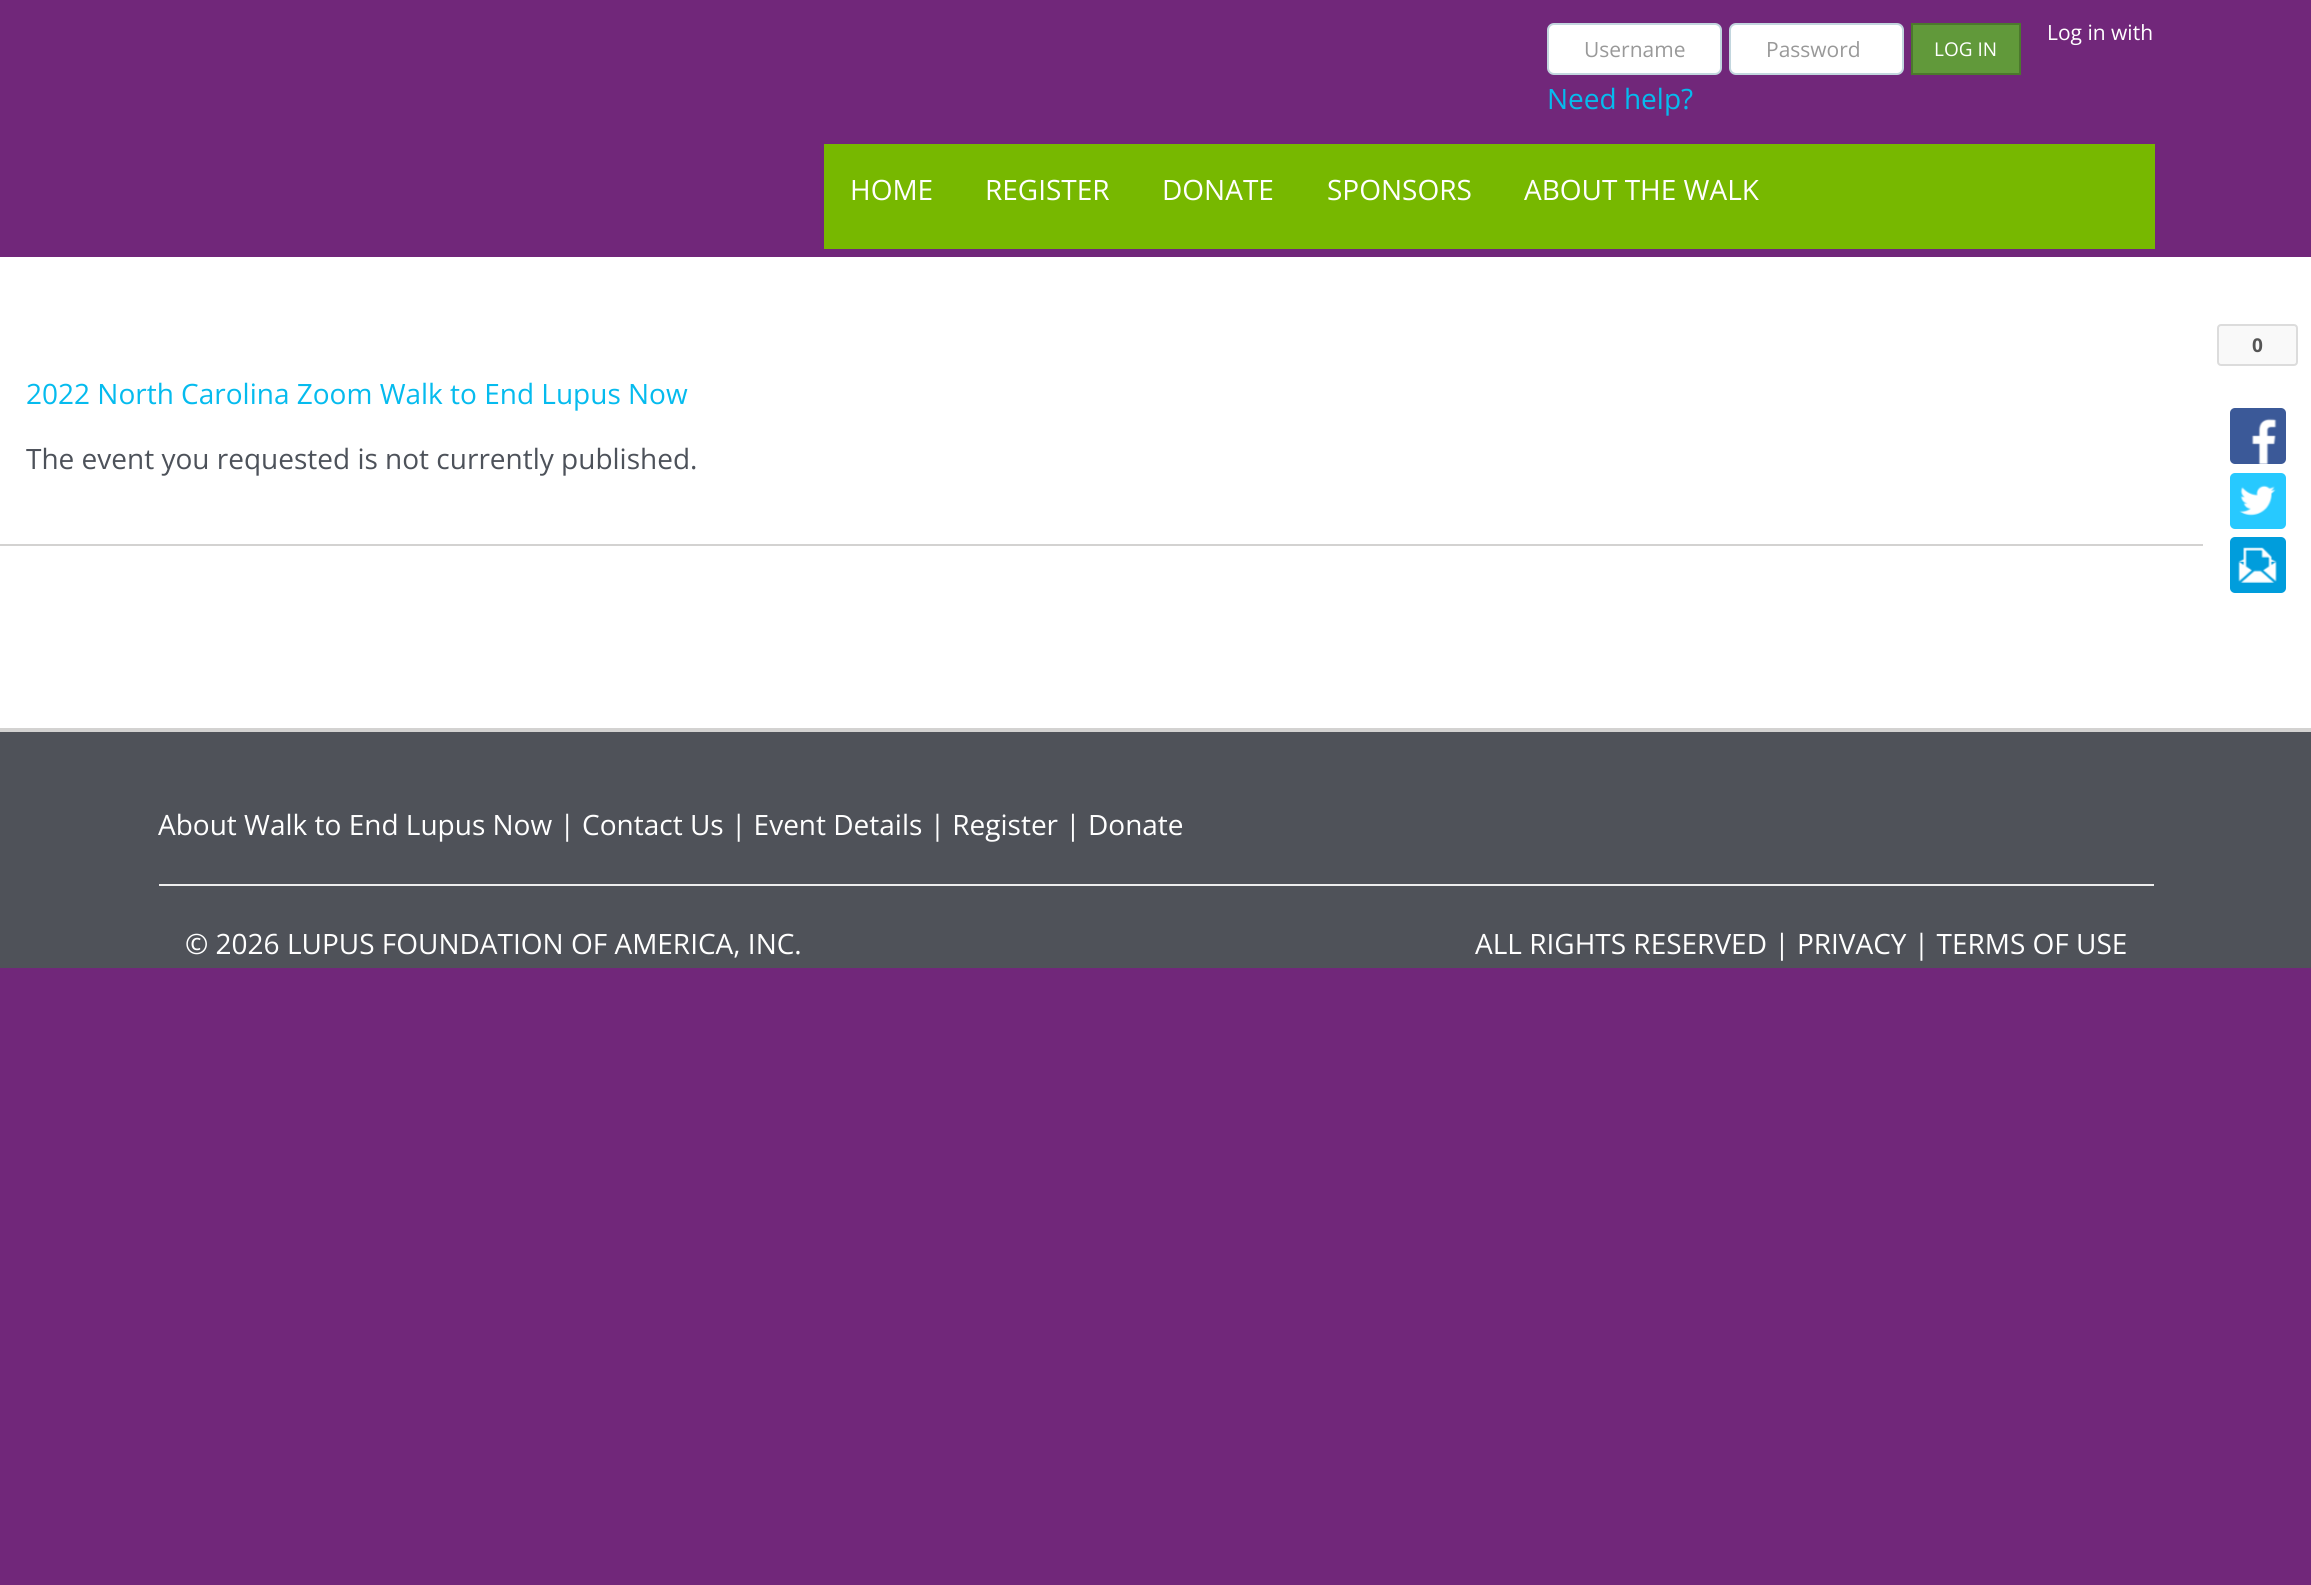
import math
import cairo


def round_path(ctx, x, y, w, h, r):
	ctx.new_sub_path()
	for i, (u, v) in enumerate([(x + w - r, y + h - r), (x + r, y + h - r), (x + r, y + r), (x + w - r, y + r)]):
		ctx.arc(u, v, r, i * math.pi / 2, (i + 1) * math.pi / 2)
	ctx.close_path()

def paste(ctx, path, x, y, w, h):
	ctx.save()
	ctx.set_source_surface(cairo.ImageSurface.create_from_png(path), x, y)
	ctx.rectangle(x, y, w, h)
	ctx.fill()
	ctx.restore()

def draw(ctx):
	ctx.set_source_rgb(0.443, 0.153, 0.478)
	ctx.paint()
	ctx.set_source_rgb(1, 1, 1)
	ctx.rectangle(0, 257, 2311, 471)
	ctx.fill()
	ctx.select_font_face('Open Sans')
	ctx.set_font_size(21)
	ctx.move_to(2047, 40)
	ctx.show_text('Log in with')
	round_path(ctx, 1548, 24, 173, 50, 6)
	ctx.fill_preserve()
	ctx.set_source_rgb(0.761, 0.839, 0.871)
	ctx.stroke()
	ctx.set_source_rgb(0.6, 0.6, 0.6)
	ctx.move_to(1584, 57)
	ctx.show_text('Username')
	ctx.set_source_rgb(1, 1, 1)
	round_path(ctx, 1730, 24, 173, 50, 6)
	ctx.fill_preserve()
	ctx.set_source_rgb(0.761, 0.839, 0.871)
	ctx.stroke()
	ctx.set_source_rgb(0.6, 0.6, 0.6)
	ctx.move_to(1766, 57)
	ctx.show_text('Password')
	ctx.set_source_rgb(0.38, 0.6, 0.227)
	ctx.rectangle(1912, 24, 108, 50)
	ctx.fill_preserve()
	ctx.set_source_rgb(0.298, 0.471, 0.176)
	ctx.stroke()
	ctx.set_font_size(19)
	ctx.set_source_rgb(1, 1, 1)
	ctx.move_to(1934, 56)
	ctx.show_text('LOG IN')
	ctx.set_font_size(28)
	ctx.set_source_rgb(0.02, 0.733, 0.933)
	ctx.move_to(1547, 109)
	ctx.show_text('Need help?')
	ctx.set_source_rgb(0.467, 0.722, 0)
	ctx.rectangle(824, 144, 1331, 105)
	ctx.fill()
	ctx.set_source_rgb(1, 1, 1)
	for x, y, s in [
		(850, 200, 'HOME'),
		(985, 200, 'REGISTER'),
		(1162, 200, 'DONATE'),
		(1327, 200, 'SPONSORS'),
		(1524, 200, 'ABOUT THE WALK'),
	]:
		ctx.move_to(x, y)
		ctx.show_text(s)
	ctx.set_source_rgb(0.02, 0.733, 0.933)
	ctx.move_to(26, 404)
	ctx.show_text('2022 North Carolina Zoom Walk to End Lupus Now')
	ctx.set_source_rgb(0.302, 0.322, 0.353)
	ctx.move_to(26, 469)
	ctx.show_text('The event you requested is not currently published.')
	ctx.set_source_rgb(0.827, 0.824, 0.82)
	ctx.rectangle(0, 544, 2203, 2)
	ctx.rectangle(0, 728, 2311, 4)
	ctx.fill()
	ctx.set_source_rgb(0.31, 0.322, 0.349)
	ctx.rectangle(0, 732, 2311, 236)
	ctx.fill()
	ctx.set_source_rgb(1, 1, 1)
	ctx.move_to(158, 835)
	ctx.show_text('About Walk to End Lupus Now | Contact Us | Event Details | Register | Donate')
	ctx.set_source_rgb(0.933, 0.933, 0.933)
	ctx.rectangle(159, 884, 1995, 2)
	ctx.fill()
	ctx.set_source_rgb(1, 1, 1)
	ctx.move_to(185, 954)
	ctx.show_text('© 2026 LUPUS FOUNDATION OF AMERICA, INC.')
	ctx.move_to(1475, 954)
	ctx.show_text('ALL RIGHTS RESERVED | PRIVACY | TERMS OF USE')
	ctx.set_source_rgb(0.973, 0.973, 0.973)
	round_path(ctx, 2218, 325, 79, 40, 3)
	ctx.fill_preserve()
	ctx.set_source_rgb(0.863, 0.863, 0.863)
	ctx.stroke()
	ctx.select_font_face('Open Sans', cairo.FONT_SLANT_NORMAL, cairo.FONT_WEIGHT_BOLD)
	ctx.set_font_size(19)
	ctx.set_source_rgb(0.333, 0.333, 0.333)
	ctx.move_to(2252, 352)
	ctx.show_text('0')
	ctx.set_source_rgb(0.231, 0.349, 0.596)
	round_path(ctx, 2230, 408, 56, 56, 5)
	ctx.fill()
	paste(ctx, 'media/1.png', 2251, 418, 26, 46)
	ctx.set_source_rgb(0.153, 0.788, 1)
	round_path(ctx, 2230, 473, 56, 56, 5)
	ctx.fill()
	paste(ctx, 'media/2.png', 2239, 485, 37, 31)
	ctx.set_source_rgb(0, 0.616, 0.863)
	round_path(ctx, 2230, 537, 56, 56, 5)
	ctx.fill()
	paste(ctx, 'media/3.png', 2238, 547, 39, 36)


surface = cairo.ImageSurface(cairo.FORMAT_RGB24, 2311, 1585)
ctx = cairo.Context(surface)
options = cairo.FontOptions()
options.set_hint_metrics(cairo.HINT_METRICS_OFF)
options.set_hint_style(cairo.HINT_STYLE_NONE)
ctx.set_font_options(options)
ctx.set_miter_limit(4)
draw(ctx)
surface.write_to_png('image.png')
